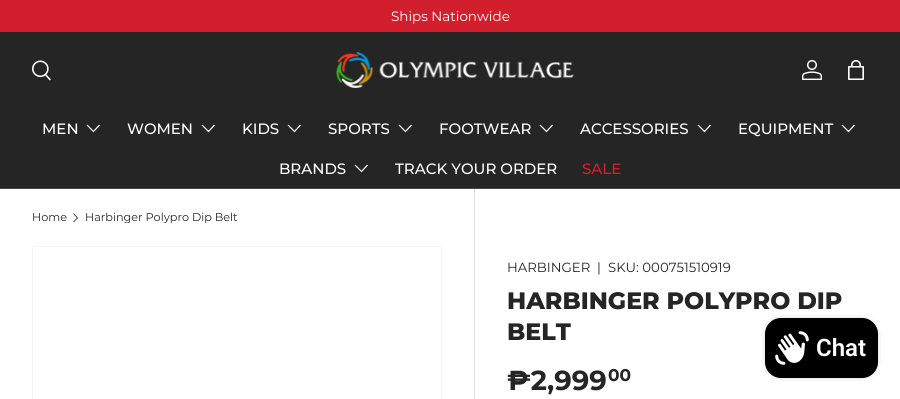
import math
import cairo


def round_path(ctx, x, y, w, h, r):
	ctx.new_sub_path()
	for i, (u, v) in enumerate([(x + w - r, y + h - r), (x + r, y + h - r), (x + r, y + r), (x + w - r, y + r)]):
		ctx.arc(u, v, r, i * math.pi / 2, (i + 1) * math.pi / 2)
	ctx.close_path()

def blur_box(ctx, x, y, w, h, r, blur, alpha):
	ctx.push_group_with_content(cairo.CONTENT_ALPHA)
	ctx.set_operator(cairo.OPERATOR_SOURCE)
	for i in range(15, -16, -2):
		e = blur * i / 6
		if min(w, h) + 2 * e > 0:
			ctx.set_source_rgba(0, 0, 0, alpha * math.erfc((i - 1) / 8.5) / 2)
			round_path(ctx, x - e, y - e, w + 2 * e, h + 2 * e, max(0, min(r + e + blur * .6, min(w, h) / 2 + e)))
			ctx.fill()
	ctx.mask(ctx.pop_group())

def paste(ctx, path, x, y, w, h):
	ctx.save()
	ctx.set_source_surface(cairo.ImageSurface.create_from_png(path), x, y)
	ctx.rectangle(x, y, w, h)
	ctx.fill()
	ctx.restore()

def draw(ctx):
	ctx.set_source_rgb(1, 1, 1)
	ctx.paint()
	ctx.set_source_rgb(0.824, 0.122, 0.18)
	ctx.rectangle(0, 0, 900, 32)
	ctx.fill()
	ctx.select_font_face('Montserrat')
	ctx.set_font_size(13.5)
	ctx.set_source_rgb(1, 1, 1)
	ctx.move_to(391, 21)
	ctx.show_text('Ships Nationwide')
	ctx.set_source_rgb(0.145, 0.145, 0.145)
	ctx.rectangle(0, 32, 900, 156)
	ctx.fill()
	ctx.set_source_rgb(0.275, 0.275, 0.275)
	ctx.rectangle(0, 188, 900, 1)
	ctx.fill()
	paste(ctx, 'media/1.png', 32, 60, 19, 21)
	paste(ctx, 'media/2.png', 336, 52, 239, 36)
	paste(ctx, 'media/3.png', 802, 60, 20, 20)
	paste(ctx, 'media/4.png', 848, 60, 16, 20)
	ctx.select_font_face('Montserrat Medium')
	ctx.set_font_size(15)
	ctx.set_source_rgb(1, 1, 1)
	ctx.move_to(42, 134)
	ctx.show_text('MEN')
	ctx.new_path()
	ctx.move_to(99.5, 125)
	ctx.line_to(93.5, 131.5)
	ctx.line_to(87, 125)
	ctx.set_line_width(1.2)
	ctx.stroke()
	ctx.move_to(127, 134)
	ctx.show_text('WOMEN')
	ctx.new_path()
	ctx.move_to(214.5, 125)
	ctx.line_to(208.5, 131.5)
	ctx.line_to(202, 125)
	ctx.stroke()
	ctx.move_to(242, 134)
	ctx.show_text('KIDS')
	ctx.new_path()
	ctx.move_to(300.5, 125)
	ctx.line_to(294.5, 131.5)
	ctx.line_to(288, 125)
	ctx.stroke()
	ctx.move_to(328, 134)
	ctx.show_text('SPORTS')
	ctx.new_path()
	ctx.move_to(411.5, 125)
	ctx.line_to(405.5, 131.5)
	ctx.line_to(399, 125)
	ctx.stroke()
	ctx.move_to(439, 134)
	ctx.show_text('FOOTWEAR')
	ctx.new_path()
	ctx.move_to(552.5, 125)
	ctx.line_to(546.5, 131.5)
	ctx.line_to(540, 125)
	ctx.stroke()
	ctx.move_to(580, 134)
	ctx.show_text('ACCESSORIES')
	ctx.new_path()
	ctx.move_to(710.5, 125)
	ctx.line_to(704.5, 131.5)
	ctx.line_to(698, 125)
	ctx.stroke()
	ctx.move_to(738, 134)
	ctx.show_text('EQUIPMENT')
	ctx.new_path()
	ctx.move_to(854.5, 125)
	ctx.line_to(848.5, 131.5)
	ctx.line_to(842, 125)
	ctx.stroke()
	ctx.move_to(279, 174)
	ctx.show_text('BRANDS')
	ctx.new_path()
	ctx.move_to(367.5, 165)
	ctx.line_to(361.5, 171.5)
	ctx.line_to(355, 165)
	ctx.stroke()
	ctx.move_to(395, 174)
	ctx.show_text('TRACK YOUR ORDER')
	ctx.set_source_rgb(0.824, 0.122, 0.18)
	ctx.move_to(582, 174)
	ctx.show_text('SALE')
	ctx.select_font_face('Montserrat')
	ctx.set_font_size(11.25)
	ctx.set_source_rgb(0.145, 0.145, 0.145)
	ctx.move_to(32, 221)
	ctx.show_text('Home')
	ctx.new_path()
	ctx.move_to(73.5, 213.5)
	ctx.line_to(77.5, 218)
	ctx.line_to(73.5, 222)
	ctx.set_line_width(0.8)
	ctx.stroke()
	ctx.save()
	ctx.rectangle(85, 212, 152, 11)
	ctx.clip()
	ctx.move_to(85, 221)
	ctx.show_text('Harbinger Polypro Dip Belt')
	ctx.restore()
	ctx.set_source_rgb(0.961, 0.961, 0.961)
	ctx.rectangle(32, 246, 410, 153)
	ctx.fill()
	ctx.set_source_rgb(1, 1, 1)
	ctx.rectangle(33, 247, 408, 152)
	ctx.fill()
	ctx.set_source_rgb(0.871, 0.871, 0.871)
	ctx.rectangle(474, 189, 1, 210)
	ctx.fill()
	ctx.set_font_size(13.25)
	ctx.set_source_rgb(0.145, 0.145, 0.145)
	for x, y, s in [
		(507, 272, 'HARBINGER'),
		(597, 272, '|'),
		(608, 272, 'SKU: 000751510919'),
	]:
		ctx.move_to(x, y)
		ctx.show_text(s)
	ctx.select_font_face('Montserrat ExtraBold')
	ctx.set_font_size(23.75)
	ctx.move_to(507, 309)
	ctx.show_text('HARBINGER POLYPRO DIP')
	ctx.move_to(507, 340)
	ctx.show_text('BELT')
	ctx.select_font_face('Montserrat', cairo.FONT_SLANT_NORMAL, cairo.FONT_WEIGHT_BOLD)
	ctx.set_font_size(27.5)
	ctx.move_to(507, 390)
	ctx.show_text('₱2,999')
	ctx.set_font_size(17)
	ctx.move_to(608, 381)
	ctx.show_text('00')
	ctx.set_source_rgb(0, 0, 0)
	blur_box(ctx, 765, 318, 113, 60, 16, 2.5, 0.15)
	ctx.set_source_rgb(0, 0, 0)
	round_path(ctx, 765, 318, 113, 60, 16)
	ctx.fill()
	paste(ctx, 'media/5.png', 775, 331, 34, 34)
	ctx.select_font_face('Roboto SemiBold')
	ctx.set_font_size(24)
	ctx.set_source_rgb(1, 1, 1)
	ctx.move_to(816, 356)
	ctx.show_text('Chat')


surface = cairo.ImageSurface(cairo.FORMAT_RGB24, 900, 399)
ctx = cairo.Context(surface)
options = cairo.FontOptions()
options.set_hint_metrics(cairo.HINT_METRICS_OFF)
options.set_hint_style(cairo.HINT_STYLE_NONE)
ctx.set_font_options(options)
ctx.set_miter_limit(4)
draw(ctx)
surface.write_to_png('image.png')
